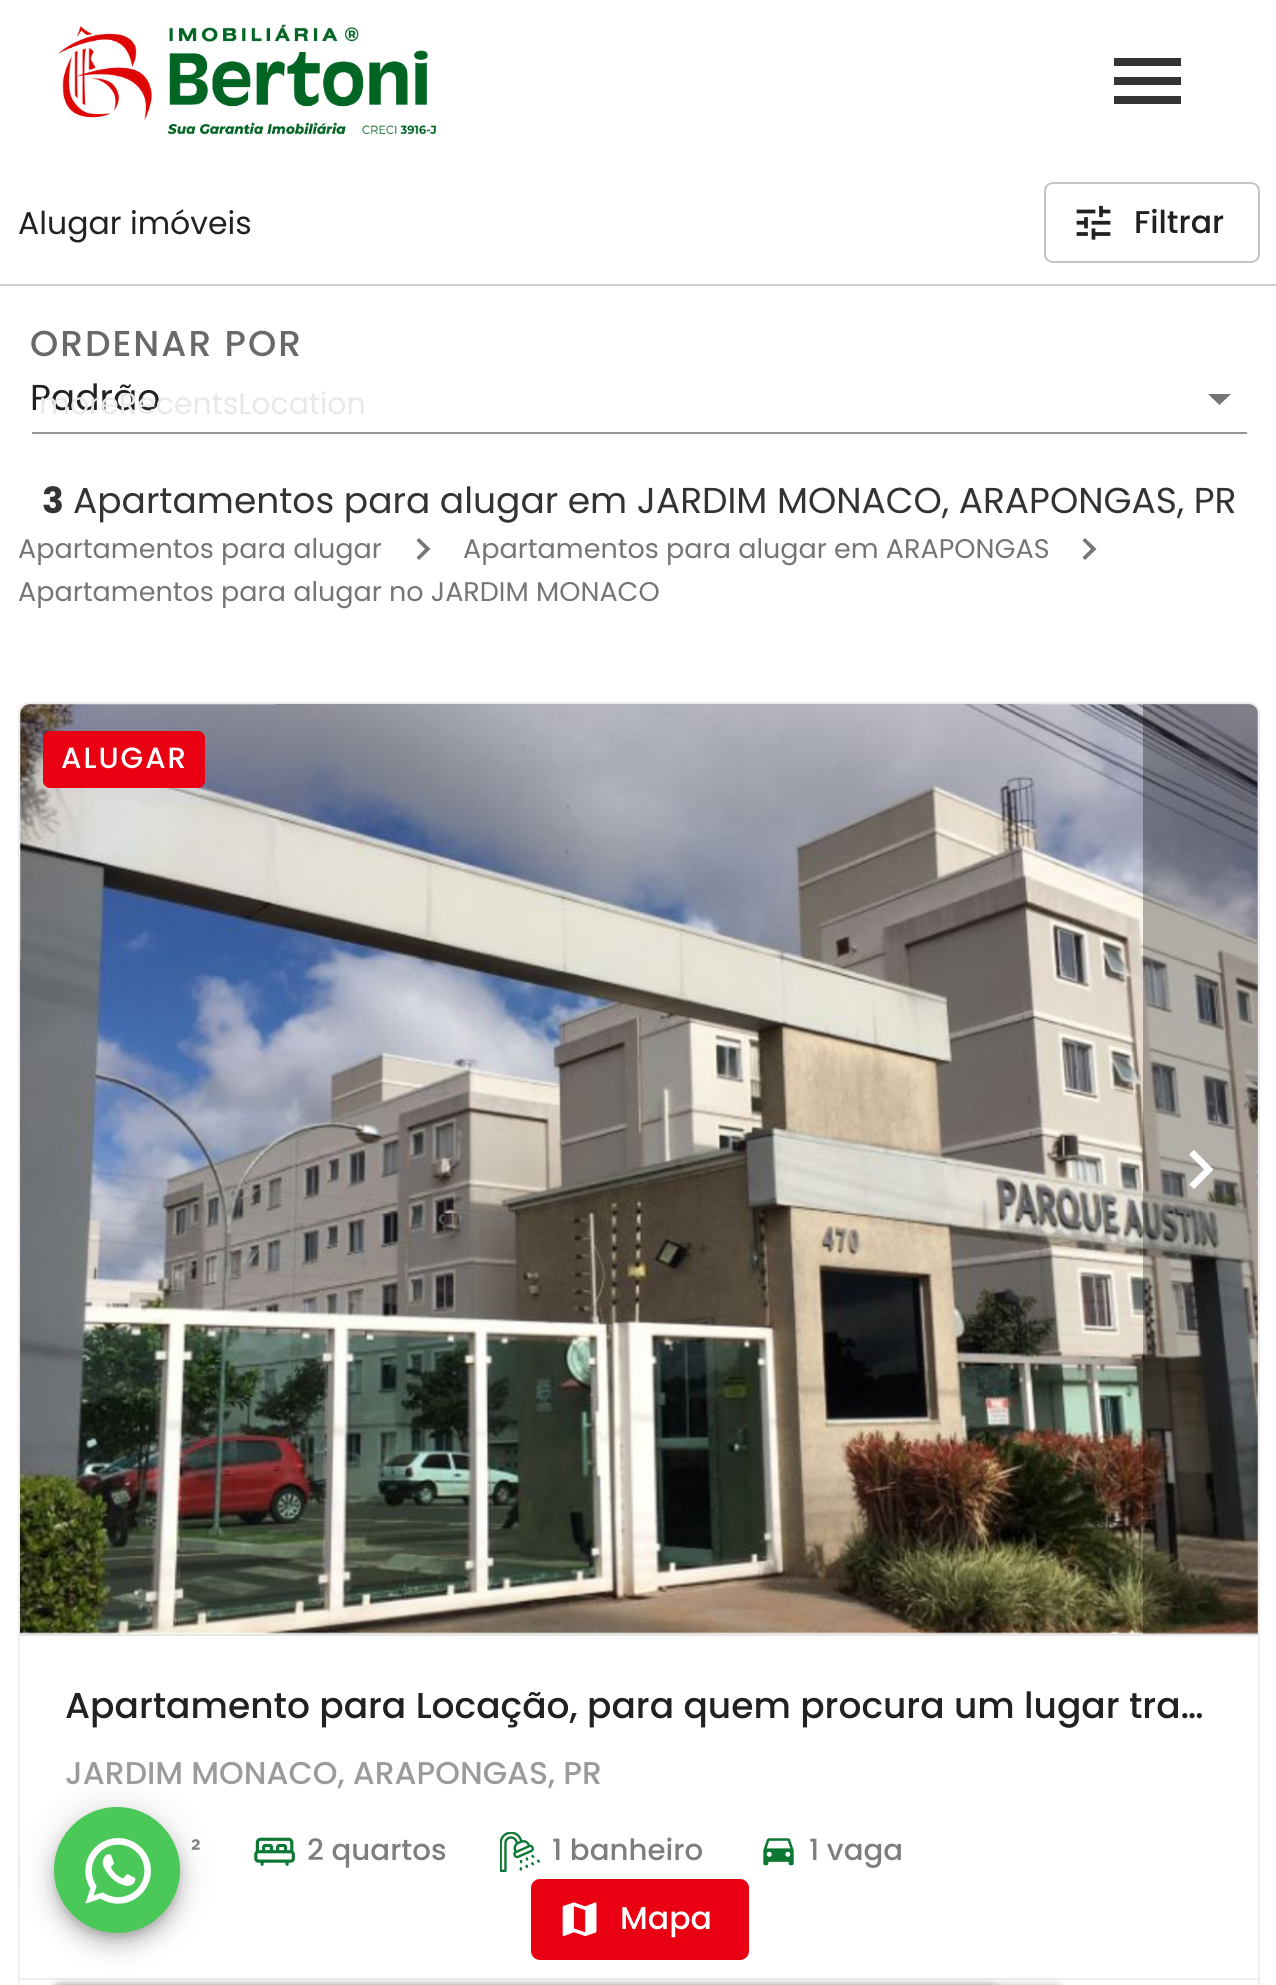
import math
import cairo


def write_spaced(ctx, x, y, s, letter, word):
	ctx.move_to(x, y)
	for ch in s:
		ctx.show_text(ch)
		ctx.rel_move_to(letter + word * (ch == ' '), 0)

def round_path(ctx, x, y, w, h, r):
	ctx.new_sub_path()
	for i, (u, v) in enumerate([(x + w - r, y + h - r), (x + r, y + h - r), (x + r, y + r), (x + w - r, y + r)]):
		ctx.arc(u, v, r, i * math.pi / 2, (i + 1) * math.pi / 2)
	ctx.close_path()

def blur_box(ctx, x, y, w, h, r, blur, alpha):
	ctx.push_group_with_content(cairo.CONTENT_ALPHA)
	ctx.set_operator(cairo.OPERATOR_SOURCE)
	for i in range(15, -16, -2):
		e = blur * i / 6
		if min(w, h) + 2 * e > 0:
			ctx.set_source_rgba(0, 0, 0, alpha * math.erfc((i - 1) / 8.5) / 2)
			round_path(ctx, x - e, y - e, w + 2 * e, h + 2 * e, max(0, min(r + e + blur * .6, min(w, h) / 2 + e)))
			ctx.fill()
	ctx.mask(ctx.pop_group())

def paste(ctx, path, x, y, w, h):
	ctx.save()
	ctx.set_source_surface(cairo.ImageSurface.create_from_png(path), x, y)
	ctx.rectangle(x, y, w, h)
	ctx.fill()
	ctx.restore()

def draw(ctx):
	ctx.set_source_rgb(1, 1, 1)
	ctx.paint()
	paste(ctx, 'media/1.png', 58, 24, 378, 111)
	ctx.set_source_rgb(0.2, 0.2, 0.2)
	ctx.new_path()
	ctx.move_to(1114, 104)
	ctx.line_to(1181, 104)
	ctx.line_to(1181, 96)
	ctx.line_to(1114, 96)
	ctx.close_path()
	ctx.move_to(1114, 85)
	ctx.line_to(1181, 85)
	ctx.line_to(1181, 77)
	ctx.line_to(1114, 77)
	ctx.close_path()
	ctx.move_to(1114, 58)
	ctx.line_to(1114, 66)
	ctx.line_to(1181, 66)
	ctx.line_to(1181, 58)
	ctx.close_path()
	ctx.fill()
	ctx.set_source_rgb(0.808, 0.808, 0.808)
	ctx.rectangle(0, 284, 1276, 2)
	ctx.fill()
	ctx.select_font_face('Poppins')
	ctx.set_font_size(31.5)
	ctx.set_source_rgb(0.129, 0.129, 0.129)
	ctx.move_to(18, 234)
	ctx.show_text('Alugar imóveis')
	round_path(ctx, 1045, 183, 214, 79, 8)
	ctx.set_source_rgb(0.769, 0.769, 0.769)
	ctx.stroke()
	paste(ctx, 'media/2.png', 1076, 205, 35, 35)
	ctx.select_font_face('Poppins Medium')
	ctx.set_source_rgb(0.129, 0.129, 0.129)
	ctx.move_to(1134, 233)
	ctx.show_text('Filtrar')
	ctx.set_font_size(36)
	ctx.set_source_rgb(0.412, 0.412, 0.412)
	write_spaced(ctx, 30, 356, 'ORDENAR POR', 2, 0)
	ctx.select_font_face('Poppins')
	ctx.set_source_rgb(0.129, 0.129, 0.129)
	ctx.move_to(30, 410)
	ctx.show_text('Padrão')
	ctx.set_font_size(30)
	ctx.set_source_rgb(0.91, 0.91, 0.91)
	ctx.move_to(39, 414)
	ctx.show_text('moreRecentsLocation')
	ctx.set_source_rgb(0.459, 0.459, 0.459)
	ctx.new_path()
	ctx.move_to(1208, 394)
	ctx.line_to(1219.5, 405)
	ctx.line_to(1231, 394)
	ctx.close_path()
	ctx.fill()
	ctx.set_source_rgb(0.58, 0.58, 0.58)
	ctx.rectangle(32, 432, 1215, 2)
	ctx.fill()
	ctx.select_font_face('Poppins', cairo.FONT_SLANT_NORMAL, cairo.FONT_WEIGHT_BOLD)
	ctx.set_font_size(36)
	ctx.set_source_rgb(0.2, 0.2, 0.2)
	ctx.move_to(42, 513)
	ctx.show_text('3')
	ctx.select_font_face('Poppins')
	ctx.move_to(73, 513)
	ctx.show_text('Apartamentos para alugar em JARDIM MONACO, ARAPONGAS, PR')
	ctx.set_font_size(27)
	ctx.set_source_rgb(0.459, 0.459, 0.459)
	ctx.move_to(18, 558)
	ctx.show_text('Apartamentos para alugar')
	ctx.new_path()
	ctx.move_to(419, 538)
	ctx.line_to(416.5, 540.5)
	ctx.line_to(425, 549)
	ctx.line_to(416.5, 557.5)
	ctx.line_to(419, 560)
	ctx.line_to(430.5, 549)
	ctx.close_path()
	ctx.fill()
	ctx.move_to(463, 558)
	ctx.show_text('Apartamentos para alugar em ARAPONGAS')
	ctx.new_path()
	ctx.move_to(1085, 538)
	ctx.line_to(1082.5, 540.5)
	ctx.line_to(1091, 549)
	ctx.line_to(1082.5, 557.5)
	ctx.line_to(1085, 560)
	ctx.line_to(1096.5, 549)
	ctx.close_path()
	ctx.fill()
	ctx.move_to(18, 601)
	ctx.show_text('Apartamentos para alugar no JARDIM MONACO')
	round_path(ctx, 19, 703, 1240, 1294, 10)
	ctx.set_source_rgb(0.933, 0.933, 0.933)
	ctx.stroke()
	ctx.set_source_rgb(0.902, 0.902, 0.902)
	ctx.rectangle(20, 1634, 1238, 2)
	ctx.fill()
	paste(ctx, 'media/3.png', 20, 704, 1238, 930)
	ctx.set_source_rgba(0, 0, 0, 0.3)
	ctx.new_path()
	ctx.move_to(1143, 704)
	ctx.line_to(1249, 704)
	ctx.curve_to(1254, 704, 1258, 708, 1258, 713)
	ctx.line_to(1258, 1634)
	ctx.line_to(1143, 1634)
	ctx.close_path()
	ctx.fill()
	ctx.set_source_rgb(1, 1, 1)
	ctx.new_path()
	ctx.move_to(1194, 1150)
	ctx.line_to(1189, 1154.5)
	ctx.line_to(1204, 1169.5)
	ctx.line_to(1189, 1184.5)
	ctx.line_to(1194, 1189)
	ctx.line_to(1213.5, 1169.5)
	ctx.close_path()
	ctx.fill()
	ctx.set_source_rgb(0.914, 0, 0.078)
	round_path(ctx, 43, 731, 162, 57, 7)
	ctx.fill()
	ctx.select_font_face('Poppins Medium')
	ctx.set_font_size(29.25)
	ctx.set_source_rgb(1, 1, 1)
	write_spaced(ctx, 61, 768, 'ALUGAR', 2, 0)
	ctx.set_font_size(36)
	ctx.set_source_rgb(0.129, 0.129, 0.129)
	ctx.move_to(65, 1718)
	ctx.show_text('Apartamento para Locação, para quem procura um lugar tra…')
	ctx.set_font_size(31.5)
	ctx.set_source_rgb(0.608, 0.608, 0.608)
	ctx.move_to(65, 1784)
	ctx.show_text('JARDIM MONACO, ARAPONGAS, PR')
	paste(ctx, 'media/4.png', 65, 1832, 2, 3)
	ctx.set_font_size(29.25)
	ctx.set_source_rgb(0.494, 0.494, 0.494)
	ctx.move_to(191, 1860)
	ctx.show_text('²')
	paste(ctx, 'media/5.png', 254, 1837, 41, 29)
	ctx.move_to(307, 1860)
	ctx.show_text('2 quartos')
	paste(ctx, 'media/6.png', 500, 1832, 40, 40)
	ctx.move_to(552, 1860)
	ctx.show_text('1 banheiro')
	paste(ctx, 'media/7.png', 763, 1838, 31, 28)
	ctx.move_to(809, 1860)
	ctx.show_text('1 vaga')
	ctx.set_source_rgb(0.933, 0.933, 0.933)
	ctx.rectangle(20, 1978, 1238, 2)
	ctx.fill()
	ctx.set_source_rgb(0.914, 0, 0.078)
	round_path(ctx, 531, 1879, 218, 81, 9)
	ctx.fill()
	paste(ctx, 'media/8.png', 562, 1902, 35, 35)
	ctx.set_font_size(31.5)
	ctx.set_source_rgb(1, 1, 1)
	ctx.move_to(620, 1929)
	ctx.show_text('Mapa')
	ctx.set_source_rgb(0, 0, 0)
	blur_box(ctx, 54, 1809, 126, 126, 63, 20, 0.12)
	blur_box(ctx, 54, 1820, 126, 126, 63, 11, 0.14)
	blur_box(ctx, 56, 1816, 122, 121, 60.5, 5.5, 0.2)
	ctx.set_source_rgb(0.29, 0.788, 0.349)
	ctx.arc(117, 1870, 63, 0, 2 * math.pi)
	ctx.fill()
	paste(ctx, 'media/9.png', 85, 1838, 66, 66)
	ctx.set_source_rgb(0, 0, 0)
	blur_box(ctx, 52, 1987, 947, 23, 11, 4.5, 0.4)
	blur_box(ctx, 52, 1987, 1012, 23, 11, 4.5, 0.4)


surface = cairo.ImageSurface(cairo.FORMAT_RGB24, 1276, 1985)
ctx = cairo.Context(surface)
options = cairo.FontOptions()
options.set_hint_metrics(cairo.HINT_METRICS_OFF)
options.set_hint_style(cairo.HINT_STYLE_NONE)
ctx.set_font_options(options)
ctx.set_miter_limit(4)
draw(ctx)
surface.write_to_png('image.png')
